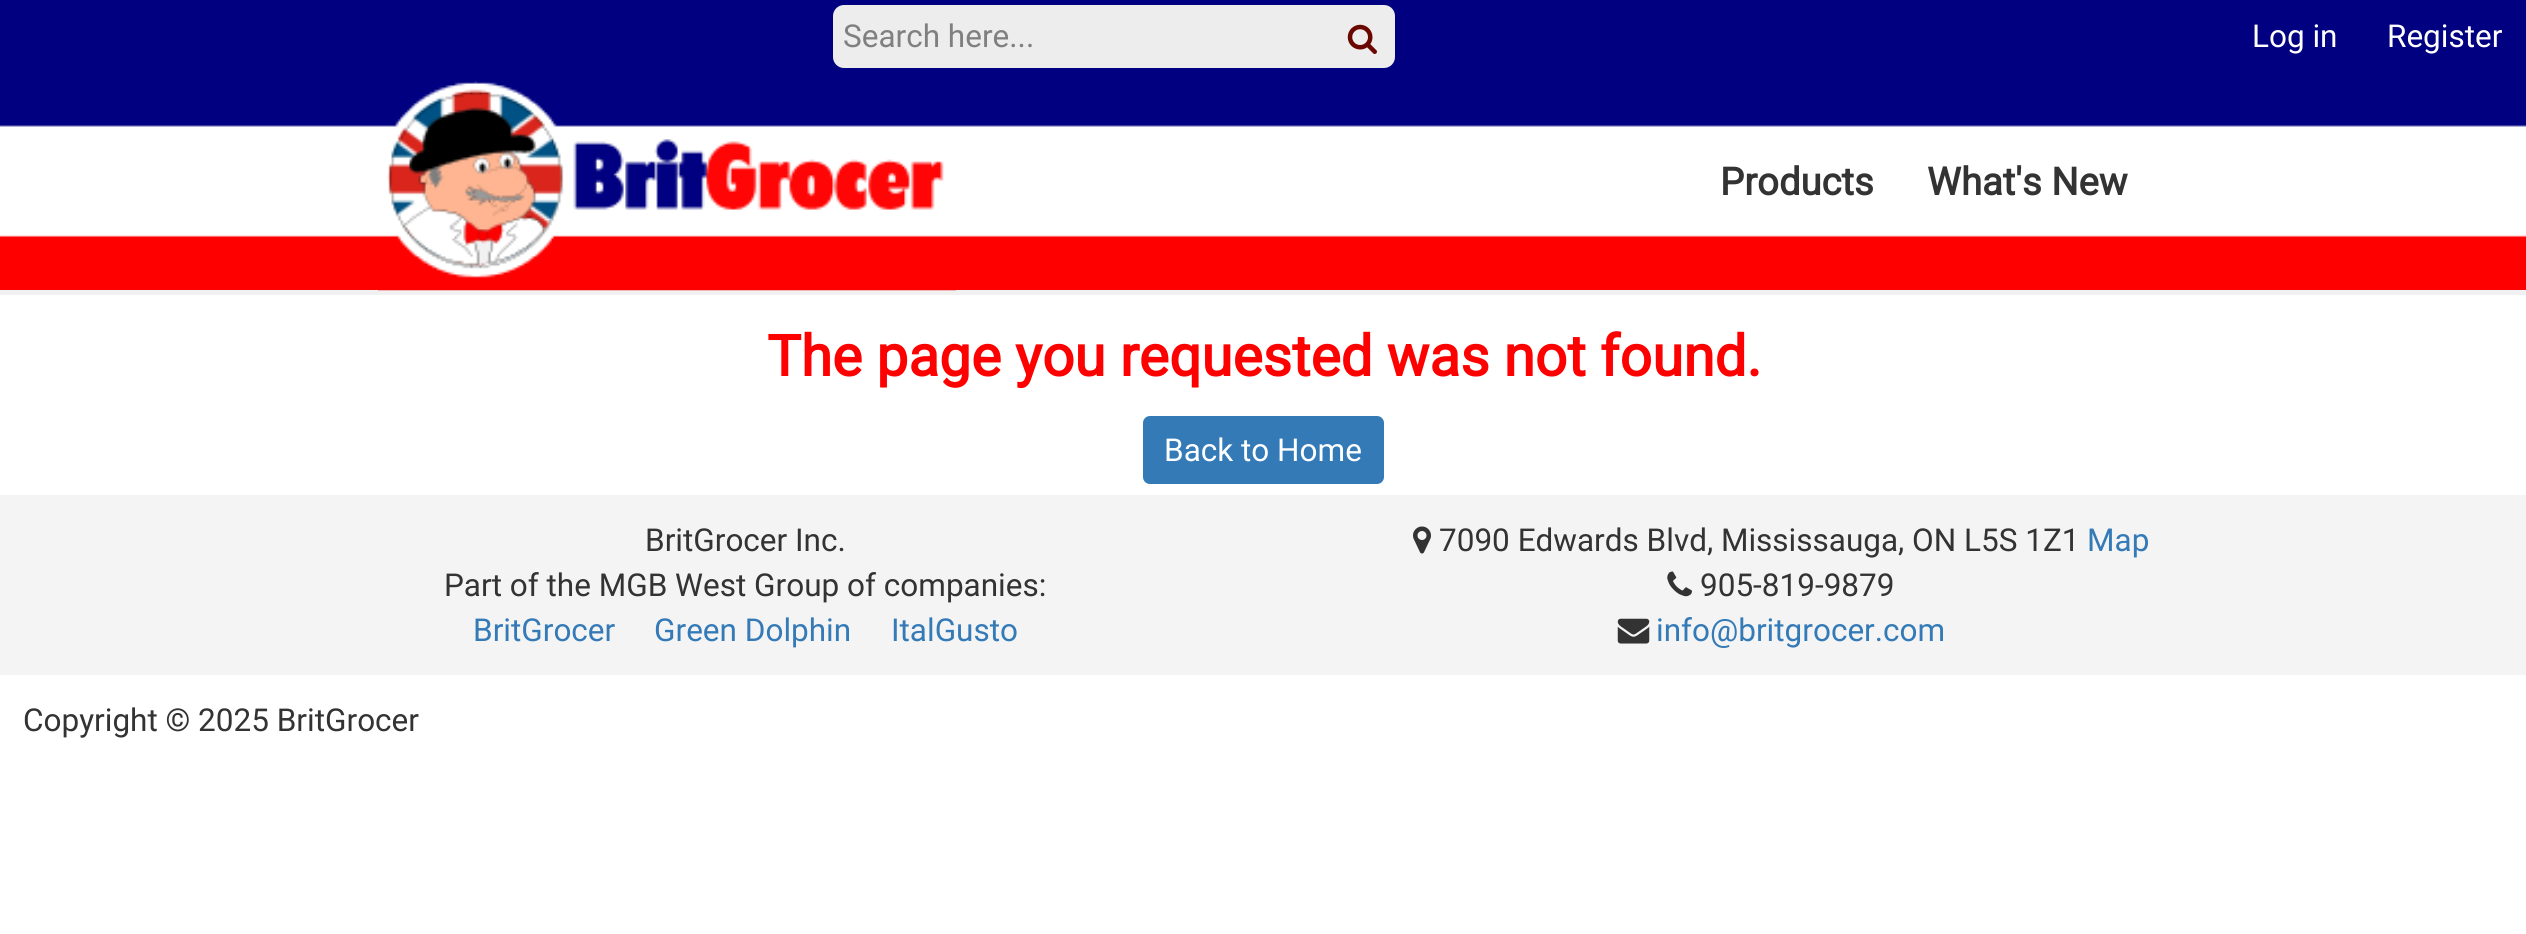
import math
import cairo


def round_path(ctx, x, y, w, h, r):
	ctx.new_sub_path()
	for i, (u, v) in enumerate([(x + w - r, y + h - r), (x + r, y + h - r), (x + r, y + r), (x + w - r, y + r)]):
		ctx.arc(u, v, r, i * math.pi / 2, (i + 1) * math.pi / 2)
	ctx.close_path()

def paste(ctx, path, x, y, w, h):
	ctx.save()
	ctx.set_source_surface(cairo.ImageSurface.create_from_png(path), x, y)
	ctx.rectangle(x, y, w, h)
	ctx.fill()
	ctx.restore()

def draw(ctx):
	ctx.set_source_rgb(1, 1, 1)
	ctx.paint()
	ctx.set_source_rgb(0.004, 0, 0.502)
	ctx.rectangle(0, 0, 2526, 72)
	ctx.fill()
	ctx.set_source_rgb(0.929, 0.929, 0.929)
	round_path(ctx, 833, 5, 562, 63, 11)
	ctx.fill()
	ctx.select_font_face('Roboto')
	ctx.set_font_size(31.5)
	ctx.set_source_rgb(0.502, 0.502, 0.502)
	ctx.move_to(843, 47)
	ctx.show_text('Search here...')
	paste(ctx, 'media/1.png', 1347, 24, 30, 30)
	ctx.set_source_rgb(1, 1, 1)
	ctx.move_to(2252, 47)
	ctx.show_text('Log in')
	ctx.move_to(2387, 47)
	ctx.show_text('Register')
	paste(ctx, 'media/2.png', 0, 72, 2526, 218)
	ctx.set_source_rgb(0.945, 0.945, 0.945)
	ctx.rectangle(0, 290, 2526, 5)
	ctx.fill()
	paste(ctx, 'media/3.png', 378, 80, 579, 211)
	ctx.select_font_face('Roboto', cairo.FONT_SLANT_NORMAL, cairo.FONT_WEIGHT_BOLD)
	ctx.set_font_size(38.25)
	ctx.set_source_rgb(0.2, 0.2, 0.2)
	ctx.move_to(1720, 195)
	ctx.show_text('Products')
	ctx.move_to(1927, 195)
	ctx.show_text('What\'s New')
	ctx.set_font_size(56.75)
	ctx.set_source_rgb(1, 0, 0)
	ctx.move_to(767, 376)
	ctx.show_text('The page you requested was not found.')
	ctx.set_source_rgb(0.2, 0.478, 0.718)
	round_path(ctx, 1143, 416, 241, 68, 7)
	ctx.fill()
	ctx.select_font_face('Roboto')
	ctx.set_font_size(31.5)
	ctx.set_source_rgb(1, 1, 1)
	ctx.move_to(1164, 461)
	ctx.show_text('Back to Home')
	ctx.set_source_rgb(0.957, 0.957, 0.957)
	ctx.rectangle(0, 495, 2526, 180)
	ctx.fill()
	ctx.set_source_rgb(0.2, 0.2, 0.2)
	ctx.move_to(645, 551)
	ctx.show_text('BritGrocer Inc.')
	ctx.move_to(444, 596)
	ctx.show_text('Part of the MGB West Group of companies:')
	ctx.set_source_rgb(0.2, 0.478, 0.718)
	for x, y, s in [
		(473, 641, 'BritGrocer'),
		(654, 641, 'Green Dolphin'),
		(891, 641, 'ItalGusto'),
	]:
		ctx.move_to(x, y)
		ctx.show_text(s)
	paste(ctx, 'media/4.png', 1413, 526, 18, 28)
	ctx.set_source_rgb(0.2, 0.2, 0.2)
	ctx.move_to(1439, 551)
	ctx.show_text('7090 Edwards Blvd, Mississauga, ON L5S 1Z1')
	ctx.set_source_rgb(0.2, 0.478, 0.718)
	ctx.move_to(2087, 551)
	ctx.show_text('Map')
	paste(ctx, 'media/5.png', 1667, 571, 25, 26)
	ctx.set_source_rgb(0.2, 0.2, 0.2)
	ctx.move_to(1700, 596)
	ctx.show_text('905-819-9879')
	paste(ctx, 'media/6.png', 1617, 618, 33, 26)
	ctx.set_source_rgb(0.2, 0.478, 0.718)
	ctx.move_to(1656, 641)
	ctx.show_text('info@britgrocer.com')
	ctx.set_source_rgb(0.2, 0.2, 0.2)
	ctx.move_to(23, 731)
	ctx.show_text('Copyright © 2025 BritGrocer')


surface = cairo.ImageSurface(cairo.FORMAT_RGB24, 2526, 934)
ctx = cairo.Context(surface)
options = cairo.FontOptions()
options.set_hint_metrics(cairo.HINT_METRICS_OFF)
options.set_hint_style(cairo.HINT_STYLE_NONE)
ctx.set_font_options(options)
ctx.set_miter_limit(4)
draw(ctx)
surface.write_to_png('image.png')
